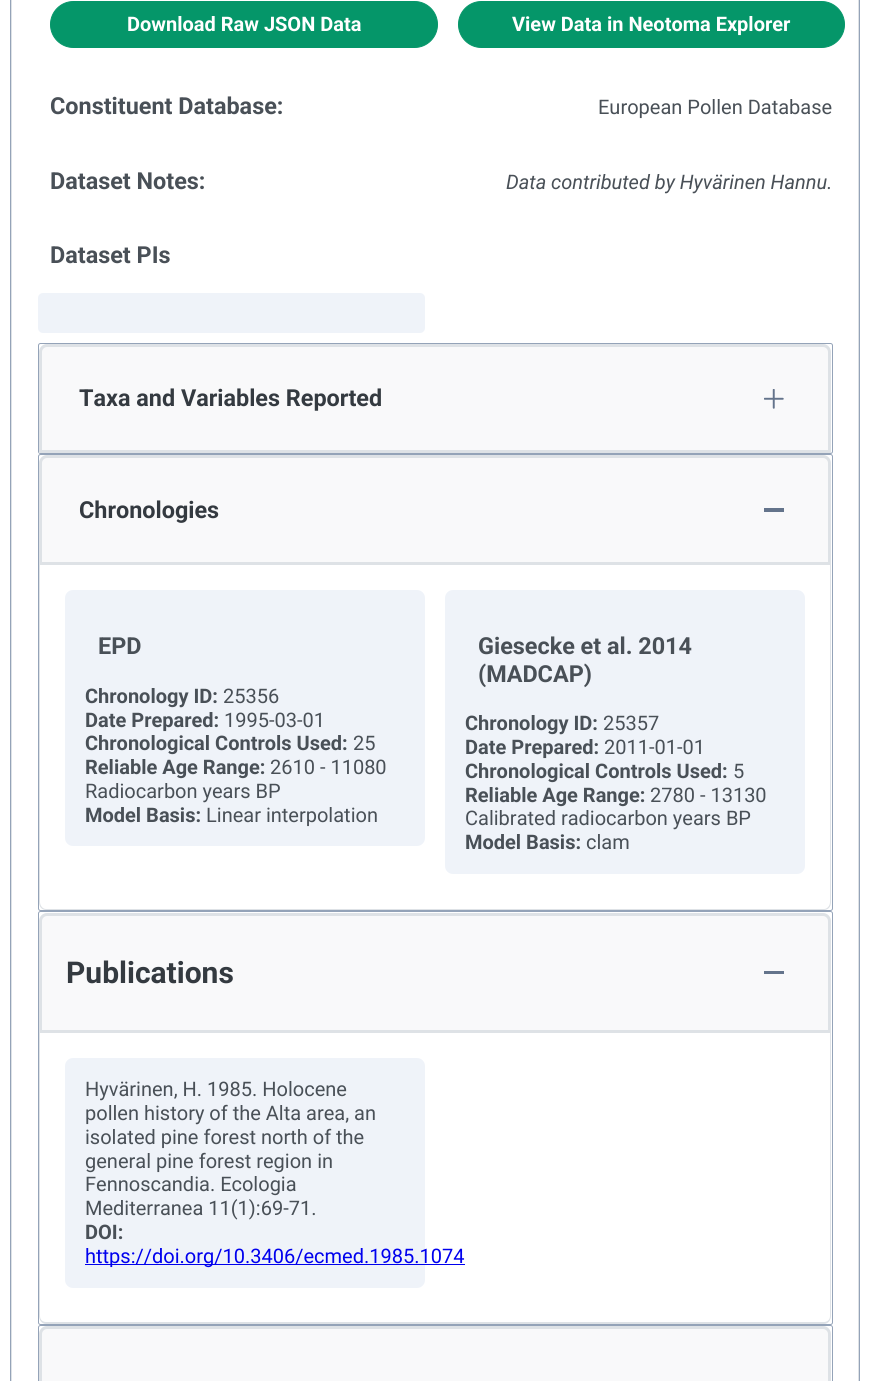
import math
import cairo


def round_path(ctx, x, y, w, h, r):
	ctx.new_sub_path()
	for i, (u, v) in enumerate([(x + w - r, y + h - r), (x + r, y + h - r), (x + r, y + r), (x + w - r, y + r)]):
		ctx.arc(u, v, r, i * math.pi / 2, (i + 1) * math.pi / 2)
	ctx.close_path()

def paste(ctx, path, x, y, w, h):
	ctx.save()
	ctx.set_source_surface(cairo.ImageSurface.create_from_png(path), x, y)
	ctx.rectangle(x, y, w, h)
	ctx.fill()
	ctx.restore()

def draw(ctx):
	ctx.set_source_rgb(1, 1, 1)
	ctx.paint()
	ctx.rectangle(10.5, -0.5, 849, 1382)
	ctx.set_source_rgb(0.58, 0.639, 0.722)
	ctx.set_line_width(1)
	ctx.stroke()
	ctx.set_source_rgb(0.871, 0.886, 0.902)
	ctx.set_fill_rule(cairo.FILL_RULE_EVEN_ODD)
	ctx.new_path()
	ctx.move_to(11, -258)
	ctx.line_to(859, -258)
	ctx.line_to(859, 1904)
	ctx.curve_to(859, 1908, 855, 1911, 851, 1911)
	ctx.line_to(19, 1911)
	ctx.curve_to(15, 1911, 11, 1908, 11, 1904)
	ctx.close_path()
	ctx.move_to(12, -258)
	ctx.line_to(858, -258)
	ctx.line_to(858, 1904)
	ctx.curve_to(858, 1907, 855, 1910, 851, 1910)
	ctx.line_to(19, 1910)
	ctx.curve_to(15, 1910, 12, 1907, 12, 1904)
	ctx.close_path()
	ctx.fill()
	ctx.set_source_rgb(0.02, 0.588, 0.412)
	round_path(ctx, 50.5, 1.5, 387, 46, 23)
	ctx.fill_preserve()
	ctx.stroke()
	ctx.select_font_face('Roboto', cairo.FONT_SLANT_NORMAL, cairo.FONT_WEIGHT_BOLD)
	ctx.set_font_size(20)
	ctx.set_source_rgb(1, 1, 1)
	ctx.move_to(127, 31)
	ctx.show_text('Download Raw JSON Data')
	ctx.set_source_rgb(0.02, 0.588, 0.412)
	round_path(ctx, 458.5, 1.5, 386, 46, 23)
	ctx.fill_preserve()
	ctx.stroke()
	ctx.set_source_rgb(1, 1, 1)
	ctx.move_to(512, 31)
	ctx.show_text('View Data in Neotoma Explorer')
	ctx.set_font_size(23.4)
	ctx.set_source_rgb(0.286, 0.314, 0.341)
	ctx.move_to(50, 114)
	ctx.show_text('Constituent Database:')
	ctx.select_font_face('Roboto')
	ctx.set_font_size(20)
	ctx.move_to(598, 114)
	ctx.show_text('European Pollen Database')
	ctx.select_font_face('Roboto', cairo.FONT_SLANT_NORMAL, cairo.FONT_WEIGHT_BOLD)
	ctx.set_font_size(23.4)
	ctx.move_to(50, 189)
	ctx.show_text('Dataset Notes:')
	ctx.select_font_face('Roboto', cairo.FONT_SLANT_ITALIC)
	ctx.set_font_size(20)
	ctx.move_to(506, 189)
	ctx.show_text('Data contributed by Hyvärinen Hannu.')
	ctx.select_font_face('Roboto', cairo.FONT_SLANT_NORMAL, cairo.FONT_WEIGHT_BOLD)
	ctx.set_font_size(23.4)
	ctx.move_to(50, 263)
	ctx.show_text('Dataset PIs')
	ctx.set_source_rgb(0.937, 0.953, 0.973)
	round_path(ctx, 38, 293, 387, 40, 5)
	ctx.fill()
	round_path(ctx, 38.5, 343.5, 794, 110, 2)
	ctx.set_source_rgb(0.58, 0.639, 0.722)
	ctx.stroke()
	ctx.set_source_rgb(0.973, 0.976, 0.98)
	ctx.new_path()
	ctx.move_to(47, 345.5)
	ctx.line_to(823, 345.5)
	ctx.curve_to(826.5, 345.5, 829.5, 348.5, 829.5, 352)
	ctx.line_to(829.5, 451.5)
	ctx.line_to(40.5, 451.5)
	ctx.line_to(40.5, 352)
	ctx.curve_to(40.5, 348.5, 43.5, 345.5, 47, 345.5)
	ctx.close_path()
	ctx.fill_preserve()
	ctx.set_source_rgb(0.871, 0.886, 0.902)
	ctx.set_line_width(3)
	ctx.stroke()
	ctx.set_source_rgb(0.204, 0.227, 0.251)
	ctx.move_to(79, 406)
	ctx.show_text('Taxa and Variables Reported')
	paste(ctx, 'media/1.png', 764, 389, 20, 20)
	round_path(ctx, 38.5, 454.5, 794, 456, 2)
	ctx.set_source_rgb(0.58, 0.639, 0.722)
	ctx.set_line_width(1)
	ctx.stroke()
	ctx.set_source_rgb(0.973, 0.976, 0.98)
	ctx.new_path()
	ctx.move_to(47, 456.5)
	ctx.line_to(823, 456.5)
	ctx.curve_to(826.5, 456.5, 829.5, 459.5, 829.5, 463)
	ctx.line_to(829.5, 563.5)
	ctx.line_to(40.5, 563.5)
	ctx.line_to(40.5, 463)
	ctx.curve_to(40.5, 459.5, 43.5, 456.5, 47, 456.5)
	ctx.close_path()
	ctx.fill_preserve()
	ctx.set_source_rgb(0.871, 0.886, 0.902)
	ctx.set_line_width(3)
	ctx.stroke()
	ctx.set_source_rgb(0.204, 0.227, 0.251)
	ctx.move_to(79, 518)
	ctx.show_text('Chronologies')
	ctx.set_source_rgb(0.392, 0.455, 0.545)
	ctx.rectangle(764, 508, 20, 4)
	ctx.fill()
	ctx.set_source_rgb(0.871, 0.886, 0.902)
	ctx.new_path()
	ctx.move_to(39, 565)
	ctx.line_to(831, 565)
	ctx.line_to(831, 902)
	ctx.curve_to(831, 907, 828, 910, 824, 910)
	ctx.line_to(46, 910)
	ctx.curve_to(42, 910, 39, 907, 39, 902)
	ctx.close_path()
	ctx.move_to(40, 565)
	ctx.line_to(830, 565)
	ctx.line_to(830, 902)
	ctx.curve_to(830, 906, 827, 909, 824, 909)
	ctx.line_to(46, 909)
	ctx.curve_to(43, 909, 40, 906, 40, 902)
	ctx.close_path()
	ctx.fill()
	ctx.set_source_rgb(0.937, 0.953, 0.973)
	round_path(ctx, 65, 590, 360, 256, 8)
	ctx.fill()
	ctx.set_source_rgb(0.286, 0.314, 0.341)
	ctx.move_to(98, 654)
	ctx.show_text('EPD')
	ctx.set_font_size(20)
	ctx.move_to(85, 703)
	ctx.show_text('Chronology ID:')
	ctx.select_font_face('Roboto')
	ctx.move_to(223, 703)
	ctx.show_text('25356')
	ctx.select_font_face('Roboto', cairo.FONT_SLANT_NORMAL, cairo.FONT_WEIGHT_BOLD)
	ctx.move_to(85, 727)
	ctx.show_text('Date Prepared:')
	ctx.select_font_face('Roboto')
	ctx.move_to(224, 727)
	ctx.show_text('1995-03-01')
	ctx.select_font_face('Roboto', cairo.FONT_SLANT_NORMAL, cairo.FONT_WEIGHT_BOLD)
	ctx.move_to(85, 750)
	ctx.show_text('Chronological Controls Used:')
	ctx.select_font_face('Roboto')
	ctx.move_to(353, 750)
	ctx.show_text('25')
	ctx.select_font_face('Roboto', cairo.FONT_SLANT_NORMAL, cairo.FONT_WEIGHT_BOLD)
	ctx.move_to(85, 774)
	ctx.show_text('Reliable Age Range:')
	ctx.select_font_face('Roboto')
	ctx.move_to(270, 774)
	ctx.show_text('2610 - 11080')
	ctx.move_to(85, 798)
	ctx.show_text('Radiocarbon years BP')
	ctx.select_font_face('Roboto', cairo.FONT_SLANT_NORMAL, cairo.FONT_WEIGHT_BOLD)
	ctx.move_to(85, 822)
	ctx.show_text('Model Basis:')
	ctx.select_font_face('Roboto')
	ctx.move_to(206, 822)
	ctx.show_text('Linear interpolation')
	ctx.set_source_rgb(0.937, 0.953, 0.973)
	round_path(ctx, 445, 590, 360, 284, 8)
	ctx.fill()
	ctx.select_font_face('Roboto', cairo.FONT_SLANT_NORMAL, cairo.FONT_WEIGHT_BOLD)
	ctx.set_font_size(23.4)
	ctx.set_source_rgb(0.286, 0.314, 0.341)
	ctx.move_to(478, 654)
	ctx.show_text('Giesecke et al. 2014')
	ctx.move_to(478, 682)
	ctx.show_text('(MADCAP)')
	ctx.set_font_size(20)
	ctx.move_to(465, 730)
	ctx.show_text('Chronology ID:')
	ctx.select_font_face('Roboto')
	ctx.move_to(603, 730)
	ctx.show_text('25357')
	ctx.select_font_face('Roboto', cairo.FONT_SLANT_NORMAL, cairo.FONT_WEIGHT_BOLD)
	ctx.move_to(465, 754)
	ctx.show_text('Date Prepared:')
	ctx.select_font_face('Roboto')
	ctx.move_to(604, 754)
	ctx.show_text('2011-01-01')
	ctx.select_font_face('Roboto', cairo.FONT_SLANT_NORMAL, cairo.FONT_WEIGHT_BOLD)
	ctx.move_to(465, 778)
	ctx.show_text('Chronological Controls Used:')
	ctx.select_font_face('Roboto')
	ctx.move_to(733, 778)
	ctx.show_text('5')
	ctx.select_font_face('Roboto', cairo.FONT_SLANT_NORMAL, cairo.FONT_WEIGHT_BOLD)
	ctx.move_to(465, 802)
	ctx.show_text('Reliable Age Range:')
	ctx.select_font_face('Roboto')
	ctx.move_to(650, 802)
	ctx.show_text('2780 - 13130')
	ctx.move_to(465, 825)
	ctx.show_text('Calibrated radiocarbon years BP')
	ctx.select_font_face('Roboto', cairo.FONT_SLANT_NORMAL, cairo.FONT_WEIGHT_BOLD)
	ctx.move_to(465, 849)
	ctx.show_text('Model Basis:')
	ctx.select_font_face('Roboto')
	ctx.move_to(586, 849)
	ctx.show_text('clam')
	round_path(ctx, 38.5, 911.5, 794, 413, 2)
	ctx.set_source_rgb(0.58, 0.639, 0.722)
	ctx.set_line_width(1)
	ctx.stroke()
	ctx.set_source_rgb(0.973, 0.976, 0.98)
	ctx.new_path()
	ctx.move_to(47, 914.5)
	ctx.line_to(823, 914.5)
	ctx.curve_to(826.5, 914.5, 829.5, 917.5, 829.5, 921)
	ctx.line_to(829.5, 1031.5)
	ctx.line_to(40.5, 1031.5)
	ctx.line_to(40.5, 921)
	ctx.curve_to(40.5, 917.5, 43.5, 914.5, 47, 914.5)
	ctx.close_path()
	ctx.fill_preserve()
	ctx.set_source_rgb(0.871, 0.886, 0.902)
	ctx.set_line_width(3)
	ctx.stroke()
	ctx.select_font_face('Roboto', cairo.FONT_SLANT_NORMAL, cairo.FONT_WEIGHT_BOLD)
	ctx.set_font_size(30)
	ctx.set_source_rgb(0.204, 0.227, 0.251)
	ctx.move_to(66, 983)
	ctx.show_text('Publications')
	ctx.set_source_rgb(0.392, 0.455, 0.545)
	ctx.rectangle(764, 971, 20, 3)
	ctx.fill()
	ctx.set_source_rgb(0.871, 0.886, 0.902)
	ctx.new_path()
	ctx.move_to(39, 1032)
	ctx.line_to(831, 1032)
	ctx.line_to(831, 1316)
	ctx.curve_to(831, 1320, 828, 1324, 824, 1324)
	ctx.line_to(46, 1324)
	ctx.curve_to(42, 1324, 39, 1320, 39, 1316)
	ctx.close_path()
	ctx.move_to(40, 1032)
	ctx.line_to(830, 1032)
	ctx.line_to(830, 1316)
	ctx.curve_to(830, 1320, 827, 1322, 824, 1322)
	ctx.line_to(46, 1322)
	ctx.curve_to(43, 1322, 40, 1320, 40, 1316)
	ctx.close_path()
	ctx.fill()
	ctx.set_source_rgb(0.937, 0.953, 0.973)
	round_path(ctx, 65, 1058, 360, 230, 8)
	ctx.fill()
	ctx.select_font_face('Roboto')
	ctx.set_font_size(20)
	ctx.set_source_rgb(0.286, 0.314, 0.341)
	for x, y, s in [
		(85, 1096, 'Hyvärinen, H. 1985. Holocene'),
		(85, 1120, 'pollen history of the Alta area, an'),
		(85, 1144, 'isolated pine forest north of the'),
		(85, 1168, 'general pine forest region in'),
		(85, 1191, 'Fennoscandia. Ecologia'),
		(85, 1215, 'Mediterranea 11(1):69-71.'),
	]:
		ctx.move_to(x, y)
		ctx.show_text(s)
	ctx.select_font_face('Roboto', cairo.FONT_SLANT_NORMAL, cairo.FONT_WEIGHT_BOLD)
	ctx.move_to(85, 1239)
	ctx.show_text('DOI:')
	ctx.set_source_rgb(0, 0, 0.933)
	ctx.rectangle(85, 1264, 380, 1)
	ctx.fill()
	ctx.select_font_face('Roboto')
	ctx.move_to(85, 1263)
	ctx.show_text('https://doi.org/10.3406/ecmed.1985.1074')
	round_path(ctx, 38.5, 1325.5, 794, 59, 2)
	ctx.set_source_rgb(0.58, 0.639, 0.722)
	ctx.set_line_width(1)
	ctx.stroke()
	ctx.set_source_rgb(0.973, 0.976, 0.98)
	ctx.new_path()
	ctx.move_to(47, 1327.5)
	ctx.line_to(823, 1327.5)
	ctx.curve_to(826.5, 1327.5, 829.5, 1330.5, 829.5, 1334)
	ctx.line_to(829.5, 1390.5)
	ctx.line_to(40.5, 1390.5)
	ctx.line_to(40.5, 1334)
	ctx.curve_to(40.5, 1330.5, 43.5, 1327.5, 47, 1327.5)
	ctx.close_path()
	ctx.fill_preserve()
	ctx.set_source_rgb(0.871, 0.886, 0.902)
	ctx.set_line_width(3)
	ctx.stroke()


surface = cairo.ImageSurface(cairo.FORMAT_RGB24, 870, 1381)
ctx = cairo.Context(surface)
options = cairo.FontOptions()
options.set_hint_metrics(cairo.HINT_METRICS_OFF)
options.set_hint_style(cairo.HINT_STYLE_NONE)
ctx.set_font_options(options)
ctx.set_miter_limit(4)
draw(ctx)
surface.write_to_png('image.png')
